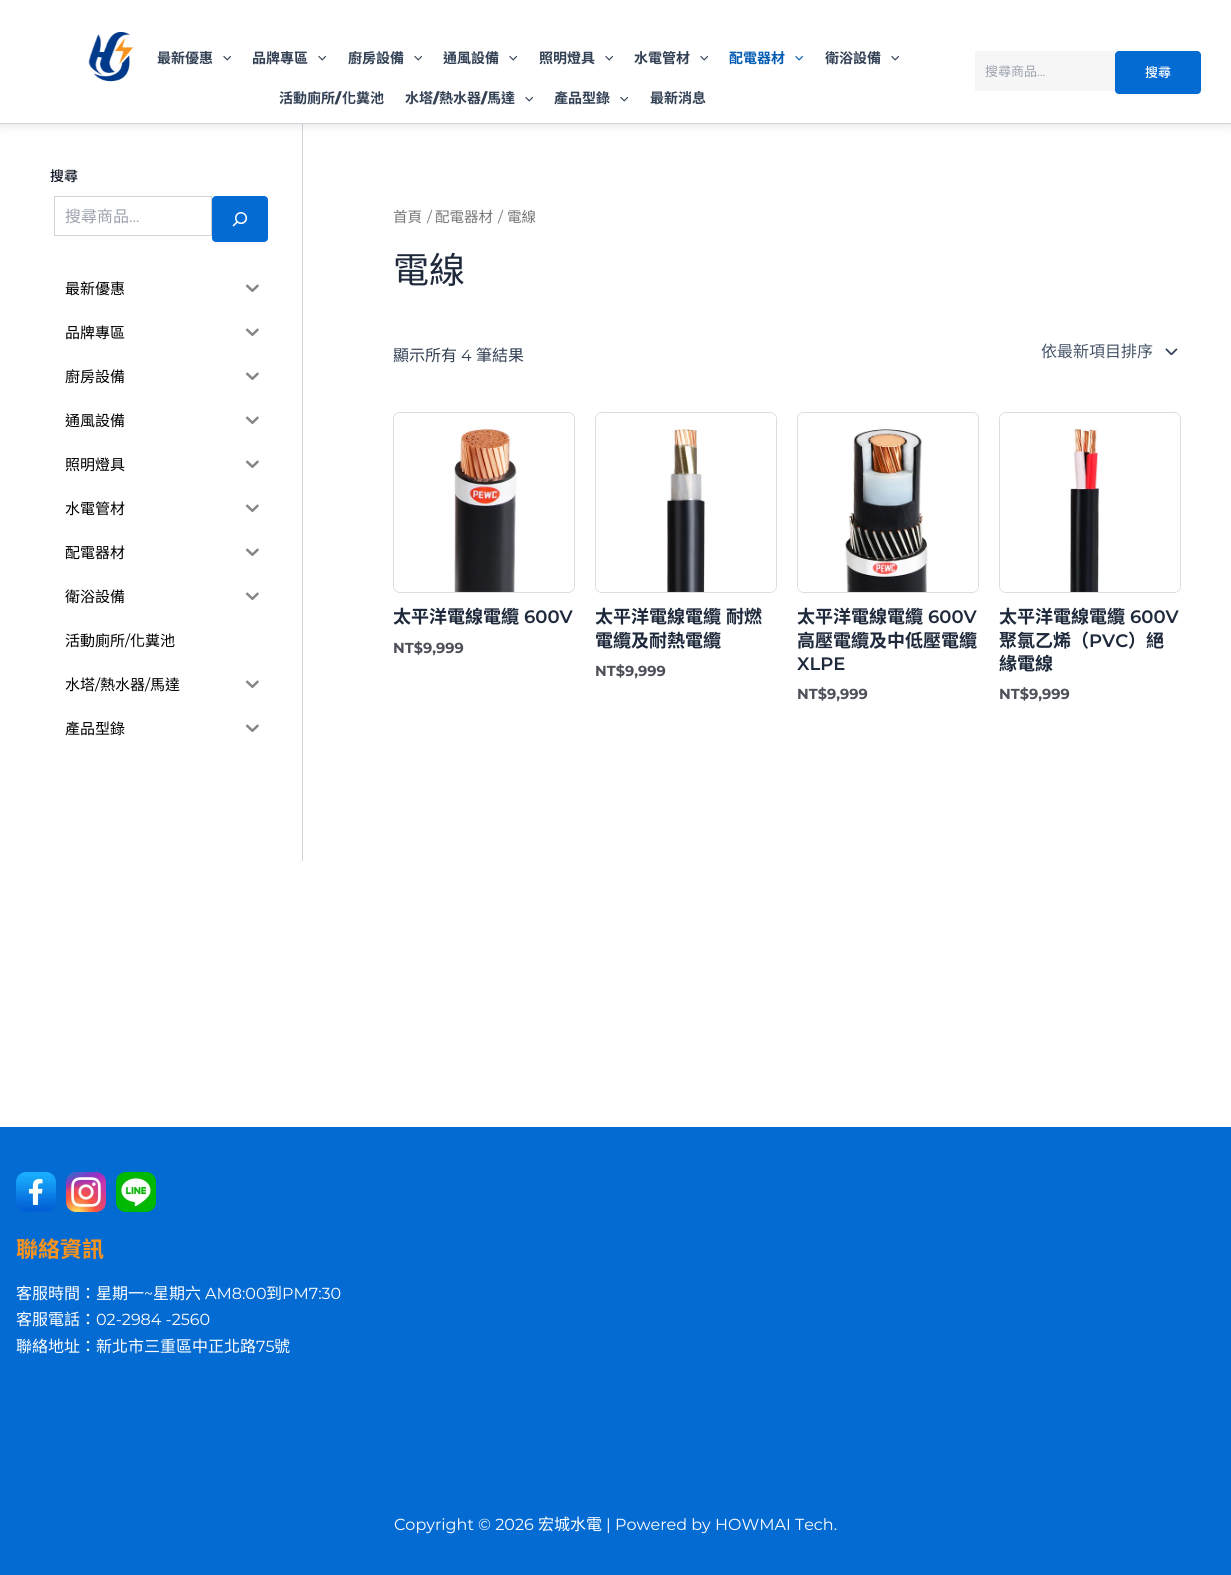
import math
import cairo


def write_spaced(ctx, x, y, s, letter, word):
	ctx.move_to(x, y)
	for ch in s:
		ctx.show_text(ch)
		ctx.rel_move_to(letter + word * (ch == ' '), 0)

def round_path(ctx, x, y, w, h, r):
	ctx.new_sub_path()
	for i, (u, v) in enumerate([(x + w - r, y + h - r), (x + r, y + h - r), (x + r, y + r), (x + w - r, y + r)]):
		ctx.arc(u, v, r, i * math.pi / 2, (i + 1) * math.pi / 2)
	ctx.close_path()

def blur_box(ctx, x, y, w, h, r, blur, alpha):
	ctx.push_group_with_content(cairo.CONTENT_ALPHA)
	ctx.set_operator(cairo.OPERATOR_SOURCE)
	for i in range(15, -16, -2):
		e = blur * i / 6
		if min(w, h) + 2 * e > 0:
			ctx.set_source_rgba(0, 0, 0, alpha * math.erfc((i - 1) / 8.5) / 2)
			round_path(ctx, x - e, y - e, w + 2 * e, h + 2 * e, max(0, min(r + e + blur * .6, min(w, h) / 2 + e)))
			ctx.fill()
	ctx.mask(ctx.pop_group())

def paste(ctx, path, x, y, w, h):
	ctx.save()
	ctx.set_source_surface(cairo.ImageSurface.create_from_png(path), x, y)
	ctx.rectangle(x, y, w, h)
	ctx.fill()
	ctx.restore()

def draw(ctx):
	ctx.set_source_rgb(1, 1, 1)
	ctx.paint()
	ctx.set_source_rgb(0.82, 0.835, 0.859)
	ctx.rectangle(302, 124, 1, 737)
	ctx.fill()
	ctx.set_source_rgb(0, 0, 0)
	blur_box(ctx, 0, 2, 1231, 124, 0, 5, 0.1)
	ctx.set_source_rgb(1, 1, 1)
	ctx.rectangle(0, 0, 1231, 123)
	ctx.fill()
	ctx.set_source_rgb(0.82, 0.835, 0.859)
	ctx.rectangle(0, 123, 1231, 1)
	ctx.fill()
	paste(ctx, 'media/1.png', 88, 32, 45, 50)
	ctx.select_font_face('Noto Sans TC', cairo.FONT_SLANT_NORMAL, cairo.FONT_WEIGHT_BOLD)
	ctx.set_font_size(14)
	ctx.set_source_rgb(0.2, 0.255, 0.333)
	ctx.move_to(157, 63)
	ctx.show_text('最新優惠')
	paste(ctx, 'media/2.png', 223, 55, 8, 6)
	ctx.move_to(252, 63)
	ctx.show_text('品牌專區')
	paste(ctx, 'media/3.png', 318, 55, 9, 6)
	ctx.move_to(348, 63)
	ctx.show_text('廚房設備')
	paste(ctx, 'media/2.png', 414, 55, 8, 6)
	ctx.move_to(443, 63)
	ctx.show_text('通風設備')
	paste(ctx, 'media/3.png', 509, 55, 9, 6)
	ctx.move_to(539, 63)
	ctx.show_text('照明燈具')
	paste(ctx, 'media/2.png', 605, 55, 8, 6)
	ctx.move_to(634, 63)
	ctx.show_text('水電管材')
	paste(ctx, 'media/2.png', 700, 55, 8, 6)
	ctx.set_source_rgb(0.016, 0.361, 0.706)
	ctx.move_to(729, 63)
	ctx.show_text('配電器材')
	paste(ctx, 'media/4.png', 795, 55, 9, 6)
	ctx.set_source_rgb(0.2, 0.255, 0.333)
	ctx.move_to(825, 63)
	ctx.show_text('衛浴設備')
	paste(ctx, 'media/2.png', 891, 55, 8, 6)
	ctx.move_to(279, 103)
	ctx.show_text('活動廁所')
	ctx.select_font_face('Montserrat Black')
	ctx.move_to(335, 103)
	ctx.show_text('/')
	ctx.select_font_face('Noto Sans TC', cairo.FONT_SLANT_NORMAL, cairo.FONT_WEIGHT_BOLD)
	ctx.move_to(342, 103)
	ctx.show_text('化糞池')
	ctx.move_to(405, 103)
	ctx.show_text('水塔')
	ctx.select_font_face('Montserrat Black')
	ctx.move_to(433, 103)
	ctx.show_text('/')
	ctx.select_font_face('Noto Sans TC', cairo.FONT_SLANT_NORMAL, cairo.FONT_WEIGHT_BOLD)
	ctx.move_to(439, 103)
	ctx.show_text('熱水器')
	ctx.select_font_face('Montserrat Black')
	ctx.move_to(481, 103)
	ctx.show_text('/')
	ctx.select_font_face('Noto Sans TC', cairo.FONT_SLANT_NORMAL, cairo.FONT_WEIGHT_BOLD)
	ctx.move_to(487, 103)
	ctx.show_text('馬達')
	paste(ctx, 'media/2.png', 525, 96, 8, 6)
	ctx.move_to(554, 103)
	ctx.show_text('產品型錄')
	paste(ctx, 'media/3.png', 620, 96, 9, 6)
	ctx.move_to(650, 103)
	ctx.show_text('最新消息')
	ctx.set_source_rgb(0.961, 0.961, 0.961)
	ctx.rectangle(975, 51, 140, 40)
	ctx.fill()
	ctx.select_font_face('Noto Sans TC')
	ctx.set_font_size(13)
	ctx.set_source_rgb(0.612, 0.639, 0.686)
	ctx.move_to(985, 76)
	ctx.show_text('搜尋商品')
	ctx.select_font_face('Montserrat')
	ctx.move_to(1037, 76)
	ctx.show_text('…')
	ctx.set_source_rgb(0, 0, 0)
	blur_box(ctx, 1115, 52, 86, 43, 4, 1, 0.05)
	ctx.set_source_rgb(0.016, 0.42, 0.824)
	round_path(ctx, 1115, 51, 86, 43, 4)
	ctx.fill()
	ctx.select_font_face('Noto Sans TC Medium')
	ctx.set_source_rgb(1, 1, 1)
	ctx.move_to(1145, 77)
	ctx.show_text('搜尋')
	ctx.set_font_size(14)
	ctx.set_source_rgb(0.067, 0.094, 0.153)
	ctx.move_to(50, 181)
	ctx.show_text('搜尋')
	ctx.rectangle(54.5, 196.5, 157, 39)
	ctx.set_source_rgb(0.82, 0.835, 0.859)
	ctx.set_line_width(1)
	ctx.stroke()
	ctx.select_font_face('Noto Sans TC')
	ctx.set_font_size(16)
	ctx.set_source_rgb(0.612, 0.639, 0.686)
	ctx.move_to(65, 222)
	ctx.show_text('搜尋商品')
	ctx.select_font_face('Montserrat')
	ctx.move_to(129, 222)
	ctx.show_text('…')
	ctx.set_source_rgb(0, 0, 0)
	blur_box(ctx, 212, 197, 56, 46, 4, 1, 0.05)
	ctx.set_source_rgb(0.016, 0.42, 0.824)
	round_path(ctx, 212, 196, 56, 46, 4)
	ctx.fill()
	paste(ctx, 'media/5.png', 232, 212, 16, 15)
	ctx.select_font_face('Noto Sans TC')
	ctx.set_font_size(15)
	ctx.set_source_rgb(0, 0, 0)
	ctx.move_to(65, 294)
	ctx.show_text('最新優惠')
	paste(ctx, 'media/6.png', 246, 284, 13, 8)
	ctx.move_to(65, 338)
	ctx.show_text('品牌專區')
	paste(ctx, 'media/6.png', 246, 328, 13, 8)
	ctx.move_to(65, 382)
	ctx.show_text('廚房設備')
	paste(ctx, 'media/6.png', 246, 372, 13, 8)
	ctx.move_to(65, 426)
	ctx.show_text('通風設備')
	paste(ctx, 'media/6.png', 246, 416, 13, 8)
	ctx.move_to(65, 470)
	ctx.show_text('照明燈具')
	paste(ctx, 'media/6.png', 246, 460, 13, 8)
	ctx.move_to(65, 514)
	ctx.show_text('水電管材')
	paste(ctx, 'media/6.png', 246, 504, 13, 8)
	ctx.move_to(65, 558)
	ctx.show_text('配電器材')
	paste(ctx, 'media/6.png', 246, 548, 13, 8)
	ctx.move_to(65, 602)
	ctx.show_text('衛浴設備')
	paste(ctx, 'media/6.png', 246, 592, 13, 8)
	ctx.move_to(65, 646)
	ctx.show_text('活動廁所')
	ctx.select_font_face('Montserrat')
	ctx.move_to(125, 646)
	ctx.show_text('/')
	ctx.select_font_face('Noto Sans TC')
	ctx.move_to(130, 646)
	ctx.show_text('化糞池')
	ctx.move_to(65, 690)
	ctx.show_text('水塔')
	ctx.select_font_face('Montserrat')
	ctx.move_to(95, 690)
	ctx.show_text('/')
	ctx.select_font_face('Noto Sans TC')
	ctx.move_to(100, 690)
	ctx.show_text('熱水器')
	ctx.select_font_face('Montserrat')
	ctx.move_to(145, 690)
	ctx.show_text('/')
	ctx.select_font_face('Noto Sans TC')
	ctx.move_to(150, 690)
	ctx.show_text('馬達')
	paste(ctx, 'media/6.png', 246, 680, 13, 8)
	ctx.move_to(65, 734)
	ctx.show_text('產品型錄')
	paste(ctx, 'media/6.png', 246, 724, 13, 8)
	ctx.set_font_size(14.5)
	ctx.set_source_rgb(0.467, 0.467, 0.467)
	ctx.move_to(393, 222)
	ctx.show_text('首頁')
	ctx.select_font_face('Montserrat')
	ctx.move_to(427, 222)
	ctx.show_text('/')
	ctx.select_font_face('Noto Sans TC')
	ctx.move_to(435, 222)
	ctx.show_text('配電器材')
	ctx.select_font_face('Montserrat')
	ctx.move_to(498, 222)
	ctx.show_text('/')
	ctx.select_font_face('Noto Sans TC')
	ctx.move_to(507, 222)
	ctx.show_text('電線')
	ctx.set_font_size(36)
	ctx.set_source_rgb(0.118, 0.161, 0.231)
	ctx.move_to(393, 283)
	ctx.show_text('電線')
	ctx.set_font_size(16)
	ctx.set_source_rgb(0.2, 0.255, 0.333)
	ctx.move_to(393, 361)
	ctx.show_text('顯示所有')
	ctx.select_font_face('Montserrat')
	ctx.move_to(461, 361)
	ctx.show_text('4')
	ctx.select_font_face('Noto Sans TC')
	ctx.move_to(476, 361)
	ctx.show_text('筆結果')
	paste(ctx, 'media/7.png', 1165, 348, 13, 7)
	ctx.set_source_rgb(0.278, 0.333, 0.412)
	ctx.move_to(1041, 357)
	ctx.show_text('依最新項目排序')
	round_path(ctx, 393.5, 412.5, 181, 180, 6.5)
	ctx.set_source_rgb(0.867, 0.867, 0.867)
	ctx.stroke()
	paste(ctx, 'media/8.png', 394, 413, 180, 179)
	ctx.select_font_face('Noto Sans TC', cairo.FONT_SLANT_NORMAL, cairo.FONT_WEIGHT_BOLD)
	ctx.set_font_size(18)
	ctx.set_source_rgb(0.118, 0.161, 0.231)
	ctx.move_to(393, 623)
	ctx.show_text('太平洋電線電纜')
	ctx.select_font_face('Montserrat SemiBold')
	ctx.move_to(524, 623)
	ctx.show_text('600V')
	ctx.select_font_face('Montserrat', cairo.FONT_SLANT_NORMAL, cairo.FONT_WEIGHT_BOLD)
	ctx.set_font_size(14.5)
	ctx.set_source_rgb(0.306, 0.314, 0.349)
	ctx.move_to(393, 653)
	ctx.show_text('NT$9,999')
	round_path(ctx, 595.5, 412.5, 181, 180, 6.5)
	ctx.set_source_rgb(0.867, 0.867, 0.867)
	ctx.stroke()
	paste(ctx, 'media/9.png', 596, 413, 180, 179)
	ctx.select_font_face('Noto Sans TC', cairo.FONT_SLANT_NORMAL, cairo.FONT_WEIGHT_BOLD)
	ctx.set_font_size(18)
	ctx.set_source_rgb(0.118, 0.161, 0.231)
	write_spaced(ctx, 595, 623, '太平洋電線電纜 耐燃', 0, 1)
	ctx.move_to(595, 647)
	ctx.show_text('電纜及耐熱電纜')
	ctx.select_font_face('Montserrat', cairo.FONT_SLANT_NORMAL, cairo.FONT_WEIGHT_BOLD)
	ctx.set_font_size(14.5)
	ctx.set_source_rgb(0.306, 0.314, 0.349)
	ctx.move_to(595, 676)
	ctx.show_text('NT$9,999')
	round_path(ctx, 797.5, 412.5, 181, 180, 6.5)
	ctx.set_source_rgb(0.867, 0.867, 0.867)
	ctx.stroke()
	paste(ctx, 'media/10.png', 798, 413, 180, 179)
	ctx.select_font_face('Noto Sans TC', cairo.FONT_SLANT_NORMAL, cairo.FONT_WEIGHT_BOLD)
	ctx.set_font_size(18)
	ctx.set_source_rgb(0.118, 0.161, 0.231)
	ctx.move_to(797, 623)
	ctx.show_text('太平洋電線電纜')
	ctx.select_font_face('Montserrat SemiBold')
	ctx.move_to(928, 623)
	ctx.show_text('600V')
	ctx.select_font_face('Noto Sans TC', cairo.FONT_SLANT_NORMAL, cairo.FONT_WEIGHT_BOLD)
	ctx.move_to(797, 647)
	ctx.show_text('高壓電纜及中低壓電纜')
	ctx.select_font_face('Montserrat SemiBold')
	ctx.move_to(797, 670)
	ctx.show_text('XLPE')
	ctx.select_font_face('Montserrat', cairo.FONT_SLANT_NORMAL, cairo.FONT_WEIGHT_BOLD)
	ctx.set_font_size(14.5)
	ctx.set_source_rgb(0.306, 0.314, 0.349)
	ctx.move_to(797, 699)
	ctx.show_text('NT$9,999')
	round_path(ctx, 999.5, 412.5, 181, 180, 6.5)
	ctx.set_source_rgb(0.867, 0.867, 0.867)
	ctx.stroke()
	paste(ctx, 'media/11.png', 1000, 413, 180, 179)
	ctx.select_font_face('Noto Sans TC', cairo.FONT_SLANT_NORMAL, cairo.FONT_WEIGHT_BOLD)
	ctx.set_font_size(18)
	ctx.set_source_rgb(0.118, 0.161, 0.231)
	ctx.move_to(999, 623)
	ctx.show_text('太平洋電線電纜')
	ctx.select_font_face('Montserrat SemiBold')
	ctx.move_to(1130, 623)
	ctx.show_text('600V')
	ctx.select_font_face('Noto Sans TC', cairo.FONT_SLANT_NORMAL, cairo.FONT_WEIGHT_BOLD)
	ctx.move_to(999, 647)
	ctx.show_text('聚氯乙烯（')
	ctx.select_font_face('Montserrat SemiBold')
	ctx.move_to(1089, 647)
	ctx.show_text('PVC')
	ctx.select_font_face('Noto Sans TC', cairo.FONT_SLANT_NORMAL, cairo.FONT_WEIGHT_BOLD)
	ctx.move_to(1128, 647)
	ctx.show_text('）絕')
	ctx.move_to(999, 670)
	ctx.show_text('緣電線')
	ctx.select_font_face('Montserrat', cairo.FONT_SLANT_NORMAL, cairo.FONT_WEIGHT_BOLD)
	ctx.set_font_size(14.5)
	ctx.set_source_rgb(0.306, 0.314, 0.349)
	ctx.move_to(999, 699)
	ctx.show_text('NT$9,999')
	ctx.set_source_rgb(0.016, 0.42, 0.824)
	ctx.rectangle(0, 1127, 1231, 448)
	ctx.fill()
	paste(ctx, 'media/12.png', 16, 1172, 40, 40)
	paste(ctx, 'media/13.png', 66, 1172, 40, 40)
	paste(ctx, 'media/14.png', 116, 1172, 40, 40)
	ctx.select_font_face('Noto Sans TC', cairo.FONT_SLANT_NORMAL, cairo.FONT_WEIGHT_BOLD)
	ctx.set_font_size(22)
	ctx.set_source_rgb(0.969, 0.576, 0.118)
	ctx.move_to(16, 1257)
	ctx.show_text('聯絡資訊')
	ctx.select_font_face('Noto Sans TC')
	ctx.set_font_size(16)
	ctx.set_source_rgb(1, 1, 1)
	ctx.move_to(16, 1299)
	ctx.show_text('客服時間：星期一')
	ctx.select_font_face('Montserrat')
	ctx.move_to(144, 1299)
	ctx.show_text('~')
	ctx.select_font_face('Noto Sans TC')
	ctx.move_to(153, 1299)
	ctx.show_text('星期六')
	ctx.select_font_face('Montserrat')
	ctx.move_to(205, 1299)
	ctx.show_text('AM8:00')
	ctx.select_font_face('Noto Sans TC')
	ctx.move_to(266, 1299)
	ctx.show_text('到')
	ctx.select_font_face('Montserrat')
	ctx.move_to(282, 1299)
	ctx.show_text('PM7:30')
	ctx.select_font_face('Noto Sans TC')
	ctx.move_to(16, 1325)
	ctx.show_text('客服電話：')
	ctx.select_font_face('Montserrat')
	ctx.move_to(96, 1325)
	ctx.show_text('02-2984 -2560')
	ctx.select_font_face('Noto Sans TC')
	ctx.move_to(16, 1352)
	ctx.show_text('聯絡地址：新北市三重區中正北路')
	ctx.select_font_face('Montserrat')
	ctx.move_to(256, 1352)
	ctx.show_text('75')
	ctx.select_font_face('Noto Sans TC')
	ctx.move_to(274, 1352)
	ctx.show_text('號')
	ctx.select_font_face('Montserrat')
	ctx.move_to(394, 1530)
	ctx.show_text('Copyright © 2026')
	ctx.select_font_face('Noto Sans TC')
	ctx.move_to(538, 1530)
	ctx.show_text('宏城水電')
	ctx.select_font_face('Montserrat')
	ctx.move_to(606, 1530)
	ctx.show_text('| Powered by HOWMAI Tech.')


surface = cairo.ImageSurface(cairo.FORMAT_RGB24, 1231, 1575)
ctx = cairo.Context(surface)
options = cairo.FontOptions()
options.set_hint_metrics(cairo.HINT_METRICS_OFF)
options.set_hint_style(cairo.HINT_STYLE_NONE)
ctx.set_font_options(options)
ctx.set_miter_limit(4)
draw(ctx)
surface.write_to_png('image.png')
